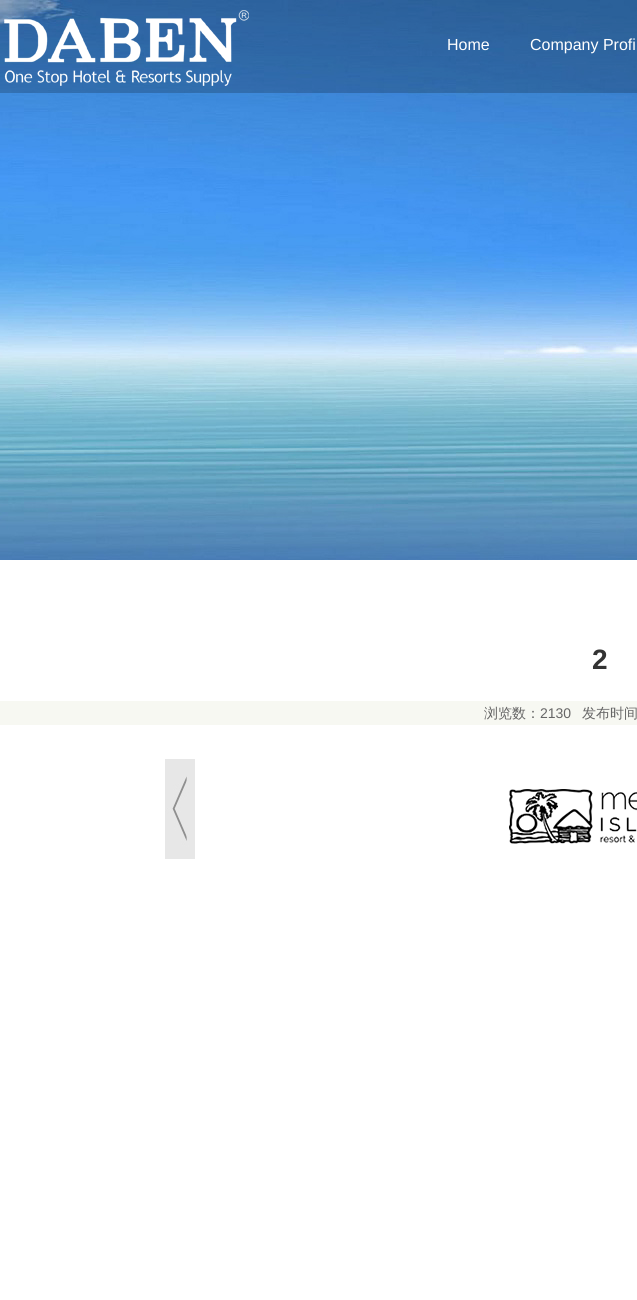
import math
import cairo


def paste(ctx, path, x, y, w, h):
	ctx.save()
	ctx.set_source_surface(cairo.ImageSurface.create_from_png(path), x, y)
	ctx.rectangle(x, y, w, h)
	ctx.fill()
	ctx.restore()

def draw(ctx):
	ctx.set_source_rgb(1, 1, 1)
	ctx.paint()
	paste(ctx, 'media/1.png', 0, 0, 637, 560)
	ctx.set_source_rgba(0, 0, 0, 0.2)
	ctx.rectangle(0, 0, 637, 93)
	ctx.fill()
	paste(ctx, 'media/2.png', 4, 10, 245, 76)
	ctx.select_font_face('Liberation Sans')
	ctx.set_font_size(16)
	ctx.set_source_rgb(1, 1, 1)
	ctx.move_to(447, 50)
	ctx.show_text('Home')
	ctx.move_to(530, 50)
	ctx.show_text('Company Profi')
	ctx.select_font_face('Liberation Sans', cairo.FONT_SLANT_NORMAL, cairo.FONT_WEIGHT_BOLD)
	ctx.set_font_size(28)
	ctx.set_source_rgb(0.2, 0.2, 0.2)
	ctx.move_to(592, 669)
	ctx.show_text('2')
	ctx.set_source_rgb(0.965, 0.969, 0.949)
	ctx.rectangle(0, 701, 637, 24)
	ctx.fill()
	ctx.select_font_face('WenQuanYi Zen Hei Medium')
	ctx.set_font_size(14)
	ctx.set_source_rgb(0.4, 0.4, 0.4)
	ctx.move_to(484, 718)
	ctx.show_text('浏览数：')
	ctx.select_font_face('Liberation Sans')
	ctx.move_to(540, 718)
	ctx.show_text('2130')
	ctx.select_font_face('WenQuanYi Zen Hei Medium')
	ctx.move_to(582, 718)
	ctx.show_text('发布时间')
	paste(ctx, 'media/3.png', 165, 759, 30, 100)
	paste(ctx, 'media/4.png', 509, 789, 128, 55)


surface = cairo.ImageSurface(cairo.FORMAT_RGB24, 637, 1300)
ctx = cairo.Context(surface)
options = cairo.FontOptions()
options.set_hint_metrics(cairo.HINT_METRICS_OFF)
options.set_hint_style(cairo.HINT_STYLE_NONE)
ctx.set_font_options(options)
ctx.set_miter_limit(4)
draw(ctx)
surface.write_to_png('image.png')
